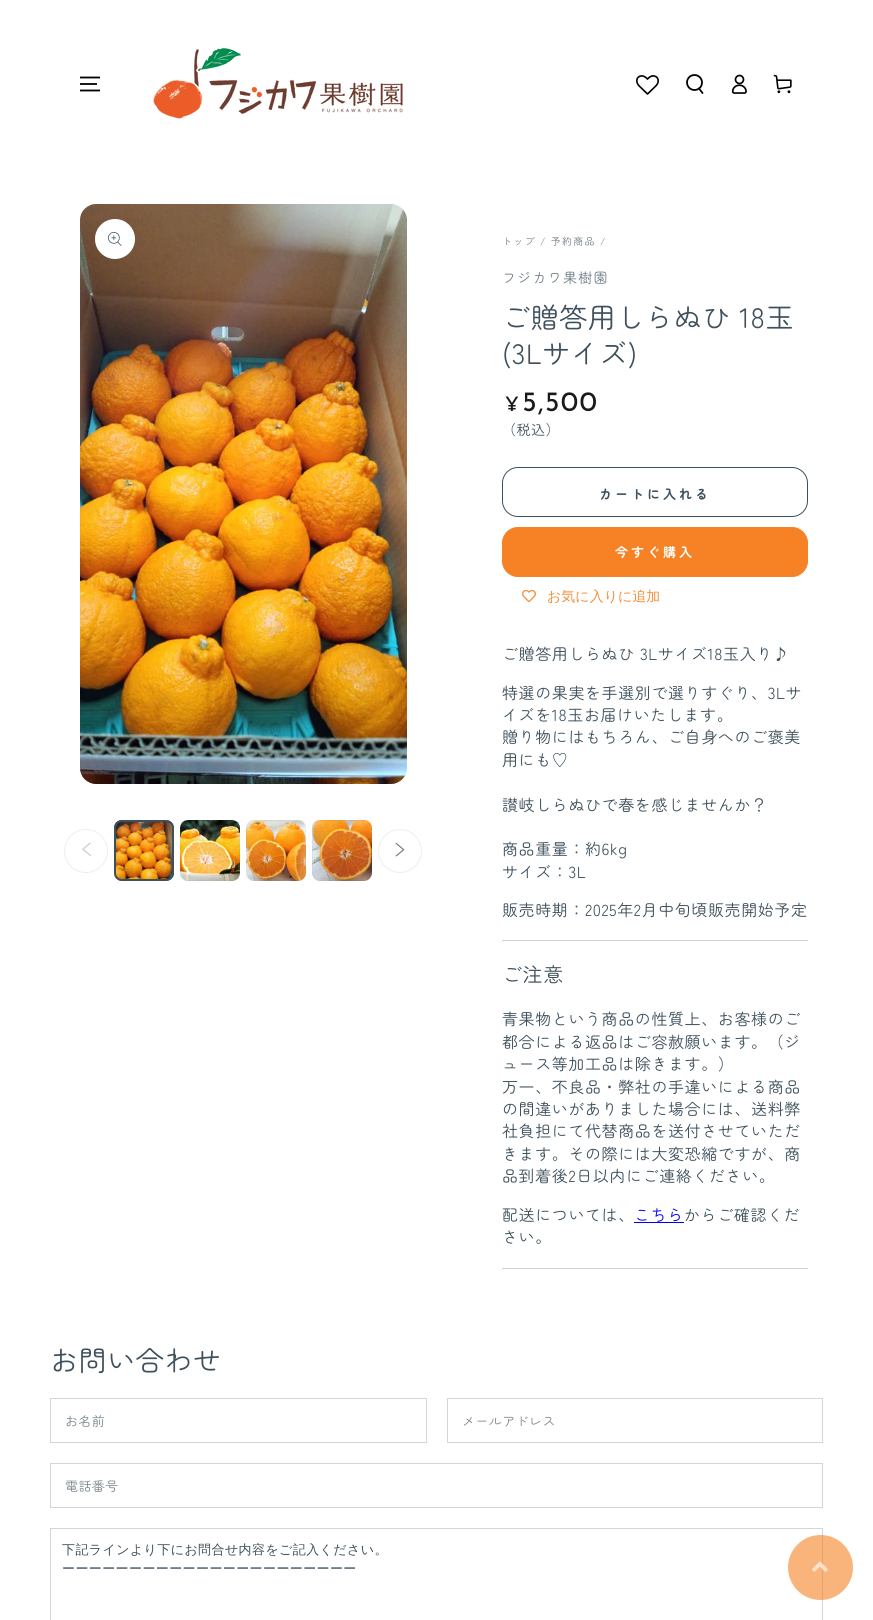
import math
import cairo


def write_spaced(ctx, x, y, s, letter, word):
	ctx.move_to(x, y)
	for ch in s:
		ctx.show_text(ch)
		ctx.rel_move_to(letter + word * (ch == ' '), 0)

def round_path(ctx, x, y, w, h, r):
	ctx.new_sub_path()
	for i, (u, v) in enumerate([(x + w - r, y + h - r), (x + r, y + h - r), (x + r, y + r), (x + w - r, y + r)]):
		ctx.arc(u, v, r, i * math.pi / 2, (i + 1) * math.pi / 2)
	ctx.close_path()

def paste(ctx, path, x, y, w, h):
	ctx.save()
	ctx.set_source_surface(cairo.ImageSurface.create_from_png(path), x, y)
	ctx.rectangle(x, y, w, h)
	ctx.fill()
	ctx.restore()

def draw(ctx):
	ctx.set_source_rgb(1, 1, 1)
	ctx.paint()
	ctx.new_path()
	ctx.move_to(80, 90.5)
	ctx.line_to(100, 90.5)
	ctx.move_to(80, 84)
	ctx.line_to(97, 84)
	ctx.move_to(80, 77.5)
	ctx.line_to(100, 77.5)
	ctx.set_source_rgb(0, 0, 0)
	ctx.set_line_width(1.8)
	ctx.stroke()
	paste(ctx, 'media/1.png', 153, 48, 250, 71)
	paste(ctx, 'media/2.png', 636, 75, 23, 20)
	ctx.arc(694.5, 82.5, 7.5, 0, 2 * math.pi)
	ctx.stroke()
	ctx.new_path()
	ctx.move_to(699, 88.5)
	ctx.line_to(702.5, 93)
	ctx.set_line_cap(cairo.LINE_CAP_ROUND)
	ctx.stroke()
	paste(ctx, 'media/3.png', 731, 74, 16, 20)
	paste(ctx, 'media/4.png', 773, 74, 19, 20)
	paste(ctx, 'media/5.png', 80, 204, 327, 580)
	ctx.set_source_rgb(1, 1, 1)
	ctx.arc(115, 239, 20, 0, 2 * math.pi)
	ctx.fill()
	paste(ctx, 'media/6.png', 108, 232, 14, 14)
	paste(ctx, 'media/7.png', 114, 820, 60, 61)
	round_path(ctx, 115, 821, 58, 59, 7)
	ctx.set_source_rgb(0.243, 0.314, 0.361)
	ctx.set_line_width(2)
	ctx.set_line_cap(cairo.LINE_CAP_BUTT)
	ctx.stroke()
	paste(ctx, 'media/8.png', 180, 820, 60, 61)
	ctx.set_source_rgba(0.243, 0.314, 0.361, 0.04)
	ctx.set_fill_rule(cairo.FILL_RULE_EVEN_ODD)
	ctx.new_path()
	ctx.move_to(180, 826)
	ctx.line_to(180, 875)
	ctx.curve_to(180, 876, 180, 877, 181, 878)
	ctx.line_to(181, 823)
	ctx.close_path()
	ctx.move_to(186, 820)
	ctx.line_to(183, 821)
	ctx.line_to(237, 821)
	ctx.line_to(234, 820)
	ctx.close_path()
	ctx.move_to(240, 826)
	ctx.line_to(239, 823)
	ctx.line_to(239, 878)
	ctx.curve_to(240, 877, 240, 876, 240, 875)
	ctx.close_path()
	ctx.move_to(234, 881)
	ctx.line_to(237, 880)
	ctx.line_to(183, 880)
	ctx.curve_to(184, 881, 185, 881, 186, 881)
	ctx.close_path()
	ctx.fill()
	paste(ctx, 'media/9.png', 246, 820, 60, 61)
	ctx.new_path()
	ctx.move_to(246, 826)
	ctx.line_to(246, 875)
	ctx.curve_to(246, 876, 246, 877, 247, 878)
	ctx.line_to(247, 823)
	ctx.close_path()
	ctx.move_to(252, 820)
	ctx.line_to(249, 821)
	ctx.line_to(303, 821)
	ctx.line_to(300, 820)
	ctx.close_path()
	ctx.move_to(306, 826)
	ctx.line_to(305, 823)
	ctx.line_to(305, 878)
	ctx.curve_to(306, 877, 306, 876, 306, 875)
	ctx.close_path()
	ctx.move_to(300, 881)
	ctx.line_to(303, 880)
	ctx.line_to(249, 880)
	ctx.curve_to(250, 881, 251, 881, 252, 881)
	ctx.close_path()
	ctx.fill()
	paste(ctx, 'media/10.png', 312, 820, 60, 61)
	ctx.new_path()
	ctx.move_to(312, 826)
	ctx.line_to(312, 875)
	ctx.curve_to(312, 876, 312, 877, 313, 878)
	ctx.line_to(313, 823)
	ctx.close_path()
	ctx.move_to(318, 820)
	ctx.line_to(315, 821)
	ctx.line_to(369, 821)
	ctx.line_to(366, 820)
	ctx.close_path()
	ctx.move_to(372, 826)
	ctx.line_to(371, 823)
	ctx.line_to(371, 878)
	ctx.curve_to(372, 877, 372, 876, 372, 875)
	ctx.close_path()
	ctx.move_to(366, 881)
	ctx.line_to(369, 880)
	ctx.line_to(315, 880)
	ctx.curve_to(316, 881, 317, 881, 318, 881)
	ctx.close_path()
	ctx.fill()
	ctx.arc(86, 851, 21.5, 0, 2 * math.pi)
	ctx.set_source_rgb(0.933, 0.933, 0.933)
	ctx.set_line_width(1)
	ctx.stroke()
	paste(ctx, 'media/11.png', 82, 842, 9, 14)
	ctx.arc(400, 851, 21.5, 0, 2 * math.pi)
	ctx.stroke()
	paste(ctx, 'media/12.png', 395, 842, 10, 15)
	ctx.select_font_face('Zen Maru Gothic')
	ctx.set_font_size(10)
	ctx.set_source_rgb(0.431, 0.486, 0.522)
	for x, y, s in [
		(502, 245, 'トップ'),
		(540, 245, '/ 予約商品'),
		(600, 245, '/'),
	]:
		write_spaced(ctx, x, y, s, 1.25, 0)
	ctx.set_font_size(14)
	write_spaced(ctx, 502, 283, 'フジカワ果樹園', 1.25, 0)
	ctx.set_font_size(28)
	ctx.set_source_rgb(0.243, 0.314, 0.361)
	write_spaced(ctx, 502, 328, 'ご贈答用しらぬひ 18玉', 0.6, 0)
	write_spaced(ctx, 502, 364, '(3Lサイズ)', 0.6, 0)
	ctx.select_font_face('Josefin Sans')
	ctx.set_font_size(20)
	ctx.set_source_rgb(0.102, 0.106, 0.094)
	write_spaced(ctx, 505, 411, '¥', 1.25, 0)
	ctx.set_font_size(28)
	write_spaced(ctx, 522, 411, '5,500', 1.25, 0)
	ctx.select_font_face('Zen Maru Gothic')
	ctx.set_font_size(14)
	ctx.set_source_rgb(0.243, 0.314, 0.361)
	write_spaced(ctx, 502, 435, '（税込）', 0.5, 0)
	round_path(ctx, 502.5, 467.5, 305, 49, 15.5)
	ctx.stroke()
	ctx.select_font_face('Zen Maru Gothic', cairo.FONT_SLANT_NORMAL, cairo.FONT_WEIGHT_BOLD)
	ctx.set_font_size(13)
	write_spaced(ctx, 599, 499, 'カートに入れる', 3, 0)
	ctx.set_source_rgb(0.961, 0.51, 0.145)
	round_path(ctx, 502.5, 527.5, 305, 49, 15.5)
	ctx.fill_preserve()
	ctx.stroke()
	ctx.set_source_rgb(1, 1, 1)
	write_spaced(ctx, 615, 557, '今すぐ購入', 3, 0)
	paste(ctx, 'media/13.png', 522, 589, 14, 14)
	ctx.select_font_face('WenQuanYi Zen Hei Medium')
	ctx.set_font_size(14)
	ctx.set_source_rgb(0.965, 0.561, 0.231)
	ctx.move_to(547, 601)
	ctx.show_text('お気に入りに追加')
	ctx.select_font_face('Zen Maru Gothic')
	ctx.set_font_size(16)
	ctx.set_source_rgb(0.243, 0.314, 0.361)
	for x, y, s in [
		(502, 660, 'ご贈答用しらぬひ 3Lサイズ18玉入り♪'),
		(502, 699, '特選の果実を手選別で選りすぐり、3Lサ'),
		(502, 721, 'イズを18玉お届けいたします。'),
		(502, 743, '贈り物にはもちろん、ご自身へのご褒美'),
		(502, 766, '用にも♡'),
		(502, 811, '讃岐しらぬひで春を感じませんか？'),
		(502, 855, '商品重量：約6kg'),
		(502, 878, 'サイズ：3L'),
		(502, 916, '販売時期：2025年2月中旬頃販売開始予定'),
	]:
		write_spaced(ctx, x, y, s, 0.6, 0)
	ctx.set_source_rgb(0.82, 0.82, 0.82)
	ctx.rectangle(502, 940, 306, 1)
	ctx.fill()
	ctx.rectangle(502, 1268, 306, 1)
	ctx.fill()
	ctx.set_font_size(20)
	ctx.set_source_rgb(0.243, 0.314, 0.361)
	write_spaced(ctx, 502, 982, 'ご注意', 0.6, 0)
	ctx.set_font_size(16)
	for x, y, s in [
		(502, 1025, '青果物という商品の性質上、お客様のご'),
		(502, 1048, '都合による返品はご容赦願います。（ジ'),
		(502, 1070, 'ュース等加工品は除きます。）'),
		(502, 1093, '万一、不良品・弊社の手違いによる商品'),
		(502, 1115, 'の間違いがありました場合には、送料弊'),
		(502, 1137, '社負担にて代替商品を送付させていただ'),
		(502, 1160, 'きます。その際には大変恐縮ですが、商'),
		(502, 1182, '品到着後2日以内にご連絡ください。'),
		(502, 1221, '配送については、'),
	]:
		write_spaced(ctx, x, y, s, 0.6, 0)
	ctx.set_source_rgb(0, 0, 0.933)
	write_spaced(ctx, 634, 1221, 'こちら', 0.6, 0)
	ctx.rectangle(634, 1222, 50, 1)
	ctx.fill()
	ctx.set_source_rgb(0.243, 0.314, 0.361)
	write_spaced(ctx, 684, 1221, 'からご確認くだ', 0.6, 0)
	write_spaced(ctx, 502, 1243, 'さい。', 0.6, 0)
	ctx.set_font_size(28)
	write_spaced(ctx, 50, 1371, 'お問い合わせ', 0.6, 0)
	ctx.rectangle(50.5, 1398.5, 376, 44)
	ctx.set_source_rgb(0.824, 0.835, 0.851)
	ctx.stroke()
	ctx.set_font_size(13)
	ctx.set_source_rgb(0.471, 0.522, 0.553)
	write_spaced(ctx, 65, 1426, 'お名前', 0.4, 0)
	ctx.rectangle(447.5, 1398.5, 375, 44)
	ctx.set_source_rgb(0.824, 0.835, 0.851)
	ctx.stroke()
	ctx.set_source_rgb(0.471, 0.522, 0.553)
	write_spaced(ctx, 462, 1426, 'メールアドレス', 0.4, 0)
	ctx.rectangle(50.5, 1463.5, 772, 44)
	ctx.set_source_rgb(0.824, 0.835, 0.851)
	ctx.stroke()
	ctx.set_source_rgb(0.471, 0.522, 0.553)
	write_spaced(ctx, 65, 1491, '電話番号', 0.4, 0)
	ctx.rectangle(50.5, 1528.5, 772, 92)
	ctx.set_source_rgb(0.824, 0.835, 0.851)
	ctx.stroke()
	ctx.select_font_face('WenQuanYi Zen Hei Medium')
	ctx.set_source_rgb(0.243, 0.314, 0.361)
	write_spaced(ctx, 62, 1554, '下記ラインより下にお問合せ内容をご記入ください。', 0.4, 0)
	write_spaced(ctx, 62, 1573, 'ーーーーーーーーーーーーーーーーーーーーーー', 0.4, 0)
	ctx.set_source_rgba(0.961, 0.51, 0.145, 0.6)
	ctx.new_path()
	ctx.arc(820.5, 1567.5, 32.5, 0, 2 * math.pi)
	ctx.fill()
	paste(ctx, 'media/14.png', 812, 1561, 16, 11)


surface = cairo.ImageSurface(cairo.FORMAT_RGB24, 873, 1620)
ctx = cairo.Context(surface)
options = cairo.FontOptions()
options.set_hint_metrics(cairo.HINT_METRICS_OFF)
options.set_hint_style(cairo.HINT_STYLE_NONE)
ctx.set_font_options(options)
ctx.set_miter_limit(4)
draw(ctx)
surface.write_to_png('image.png')
